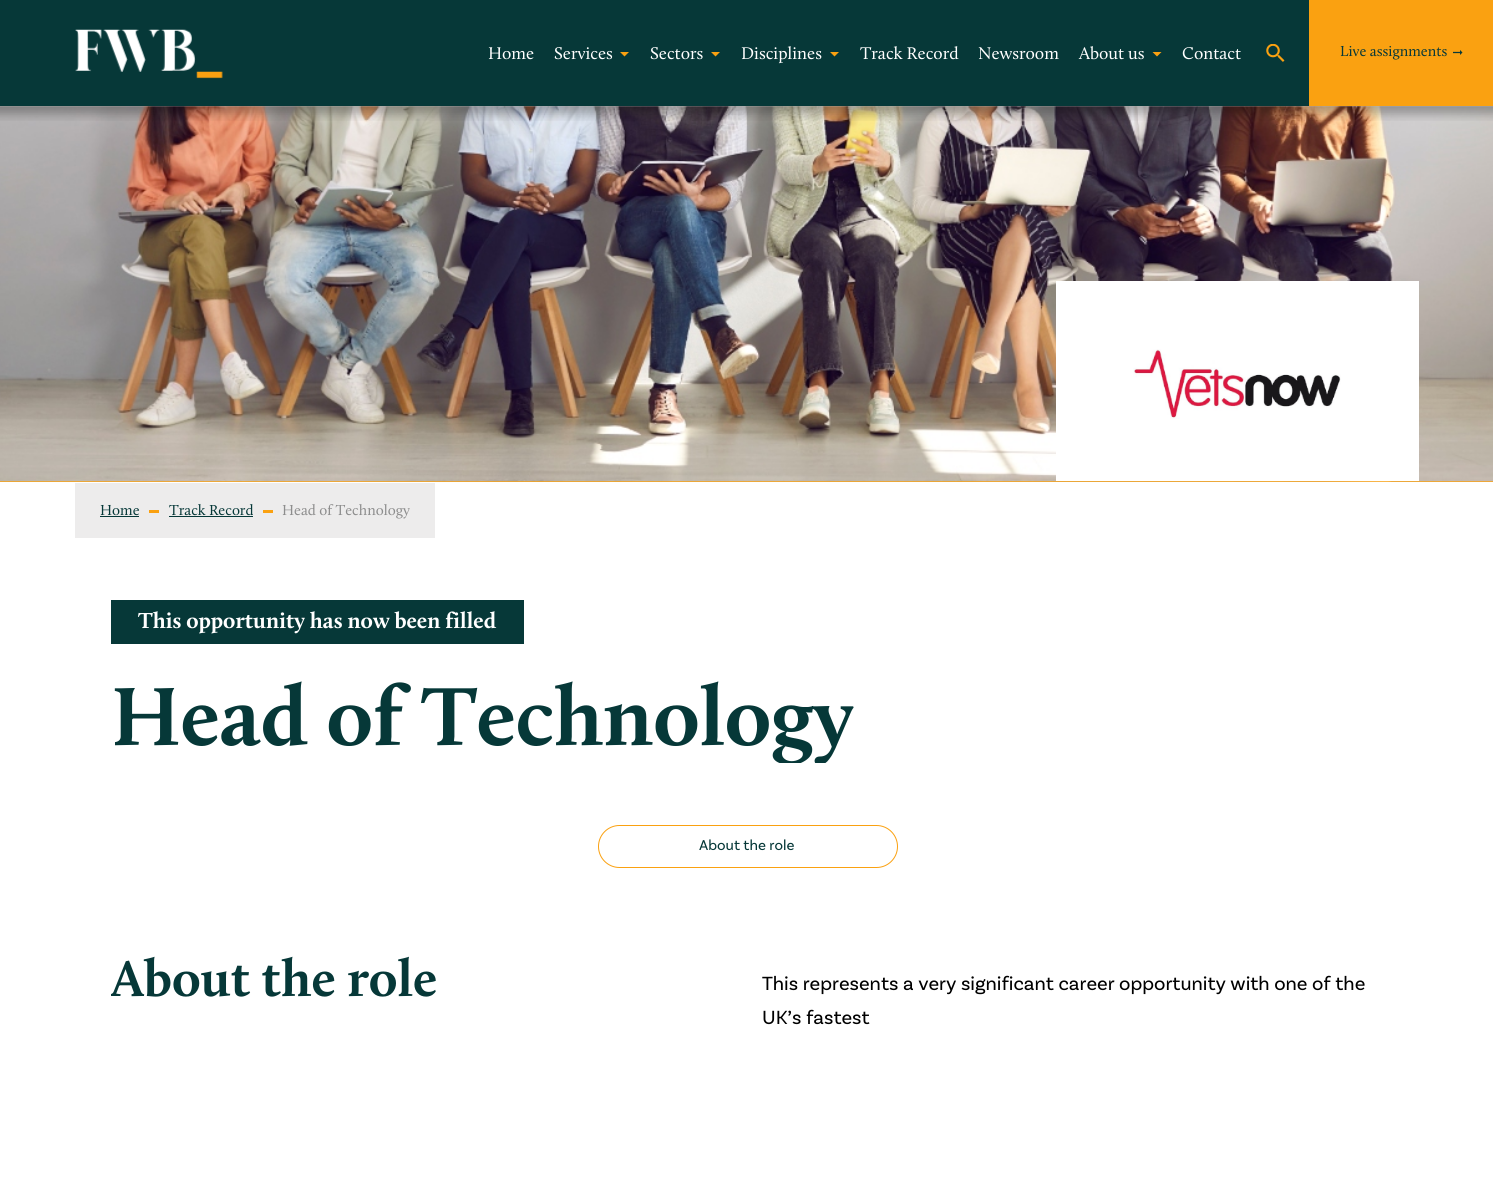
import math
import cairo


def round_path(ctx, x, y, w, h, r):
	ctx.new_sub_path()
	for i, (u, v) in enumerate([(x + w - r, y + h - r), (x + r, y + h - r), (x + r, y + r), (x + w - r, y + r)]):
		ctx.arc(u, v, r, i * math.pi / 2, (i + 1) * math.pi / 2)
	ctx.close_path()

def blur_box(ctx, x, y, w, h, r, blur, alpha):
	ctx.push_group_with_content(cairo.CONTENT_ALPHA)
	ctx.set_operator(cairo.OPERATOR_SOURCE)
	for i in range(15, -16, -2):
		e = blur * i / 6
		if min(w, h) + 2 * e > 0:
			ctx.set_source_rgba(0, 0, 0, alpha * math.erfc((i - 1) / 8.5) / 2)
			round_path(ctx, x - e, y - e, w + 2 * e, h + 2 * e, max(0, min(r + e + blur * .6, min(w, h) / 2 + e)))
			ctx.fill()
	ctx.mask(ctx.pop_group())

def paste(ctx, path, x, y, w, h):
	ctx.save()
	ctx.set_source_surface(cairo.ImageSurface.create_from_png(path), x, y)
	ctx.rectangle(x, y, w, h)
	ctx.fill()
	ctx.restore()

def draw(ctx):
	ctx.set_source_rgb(1, 1, 1)
	ctx.paint()
	ctx.set_source_rgb(0.027, 0.22, 0.22)
	ctx.rectangle(0, 0, 1309, 106)
	ctx.fill()
	ctx.set_source_rgb(0.98, 0.631, 0.067)
	ctx.rectangle(0, 481, 1493, 1)
	ctx.fill()
	paste(ctx, 'media/4.png', 0, 106, 1493, 376)
	ctx.save()
	ctx.rectangle(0, 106, 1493, 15)
	ctx.clip()
	ctx.set_source_rgb(0, 0, 0)
	blur_box(ctx, -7, -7, 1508, 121, 0, 5, 0.3)
	ctx.restore()
	paste(ctx, 'media/1.png', 75, 29, 148, 50)
	ctx.select_font_face('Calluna')
	ctx.set_font_size(17.5)
	ctx.set_source_rgb(1, 1, 1)
	ctx.move_to(488, 59)
	ctx.show_text('Home')
	ctx.move_to(554, 59)
	ctx.show_text('Services')
	ctx.set_source_rgb(0.98, 0.631, 0.067)
	ctx.new_path()
	ctx.move_to(620, 52)
	ctx.line_to(624.5, 56.5)
	ctx.line_to(629, 52)
	ctx.close_path()
	ctx.fill()
	ctx.set_source_rgb(1, 1, 1)
	ctx.move_to(650, 59)
	ctx.show_text('Sectors')
	ctx.set_source_rgb(0.98, 0.631, 0.067)
	ctx.new_path()
	ctx.move_to(711, 52)
	ctx.line_to(715.5, 56.5)
	ctx.line_to(720, 52)
	ctx.close_path()
	ctx.fill()
	ctx.set_source_rgb(1, 1, 1)
	ctx.move_to(741, 59)
	ctx.show_text('Disciplines')
	ctx.set_source_rgb(0.98, 0.631, 0.067)
	ctx.new_path()
	ctx.move_to(830, 52)
	ctx.line_to(834.5, 56.5)
	ctx.line_to(839, 52)
	ctx.close_path()
	ctx.fill()
	ctx.set_source_rgb(1, 1, 1)
	for x, y, s in [
		(860, 59, 'Track Record'),
		(978, 59, 'Newsroom'),
		(1079, 59, 'About us'),
	]:
		ctx.move_to(x, y)
		ctx.show_text(s)
	ctx.set_source_rgb(0.98, 0.631, 0.067)
	ctx.new_path()
	ctx.move_to(1152.5, 52)
	ctx.line_to(1157, 56.5)
	ctx.line_to(1161.5, 52)
	ctx.close_path()
	ctx.fill()
	ctx.set_source_rgb(1, 1, 1)
	ctx.move_to(1182, 59)
	ctx.show_text('Contact')
	paste(ctx, 'media/2.png', 1266, 44, 19, 18)
	ctx.set_source_rgb(0.98, 0.631, 0.067)
	ctx.rectangle(1309, 0, 184, 106)
	ctx.fill()
	ctx.set_font_size(15)
	ctx.set_source_rgb(0.027, 0.22, 0.22)
	ctx.move_to(1340, 56)
	ctx.show_text('Live assignments')
	paste(ctx, 'media/3.png', 1453, 50, 10, 5)
	ctx.set_source_rgb(1, 1, 1)
	ctx.rectangle(1056, 281, 363, 200)
	ctx.fill()
	paste(ctx, 'media/5.png', 1133, 349, 208, 70)
	ctx.set_source_rgb(0.929, 0.925, 0.925)
	ctx.rectangle(75, 483, 360, 55)
	ctx.fill()
	ctx.set_source_rgb(0.027, 0.22, 0.22)
	ctx.move_to(100, 515)
	ctx.show_text('Home')
	ctx.rectangle(100, 516, 39, 1)
	ctx.fill()
	ctx.set_source_rgb(0.98, 0.631, 0.067)
	ctx.rectangle(149, 510, 10, 3)
	ctx.fill()
	ctx.set_source_rgb(0.027, 0.22, 0.22)
	ctx.move_to(169, 515)
	ctx.show_text('Track Record')
	ctx.rectangle(169, 516, 84, 1)
	ctx.fill()
	ctx.set_source_rgb(0.98, 0.631, 0.067)
	ctx.rectangle(263, 510, 10, 3)
	ctx.fill()
	ctx.set_source_rgb(0.553, 0.553, 0.553)
	ctx.move_to(282, 515)
	ctx.show_text('Head of Technology')
	ctx.set_source_rgb(0.027, 0.22, 0.22)
	ctx.rectangle(111, 600, 413, 44)
	ctx.fill()
	ctx.select_font_face('Calluna', cairo.FONT_SLANT_NORMAL, cairo.FONT_WEIGHT_BOLD)
	ctx.set_font_size(22.5)
	ctx.set_source_rgb(1, 1, 1)
	ctx.move_to(138, 628)
	ctx.show_text('This opportunity has now been filled')
	ctx.save()
	ctx.rectangle(0, 483, 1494, 280)
	ctx.clip()
	ctx.set_font_size(85)
	ctx.set_source_rgb(0.027, 0.22, 0.22)
	ctx.move_to(111, 745)
	ctx.show_text('Head of Technology')
	ctx.restore()
	round_path(ctx, 598.5, 825.5, 299, 42, 21)
	ctx.set_source_rgb(0.98, 0.631, 0.067)
	ctx.set_line_width(1)
	ctx.stroke()
	ctx.select_font_face('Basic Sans')
	ctx.set_font_size(15)
	ctx.set_source_rgb(0.027, 0.22, 0.22)
	ctx.move_to(699, 850)
	ctx.show_text('About the role')
	ctx.save()
	ctx.rectangle(111, 868, 1273, 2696)
	ctx.clip()
	ctx.select_font_face('Calluna', cairo.FONT_SLANT_NORMAL, cairo.FONT_WEIGHT_BOLD)
	ctx.set_font_size(52.5)
	ctx.move_to(111, 996)
	ctx.show_text('About the role')
	ctx.restore()
	ctx.set_font_size(20)
	ctx.set_source_rgb(0, 0, 0)
	ctx.move_to(762, 990)
	ctx.show_text('This represents a very significant career opportunity with one of the')
	ctx.move_to(762, 1024)
	ctx.show_text('UK’s fastest')


surface = cairo.ImageSurface(cairo.FORMAT_RGB24, 1493, 1179)
ctx = cairo.Context(surface)
options = cairo.FontOptions()
options.set_hint_metrics(cairo.HINT_METRICS_OFF)
options.set_hint_style(cairo.HINT_STYLE_NONE)
ctx.set_font_options(options)
ctx.set_miter_limit(4)
draw(ctx)
surface.write_to_png('image.png')
